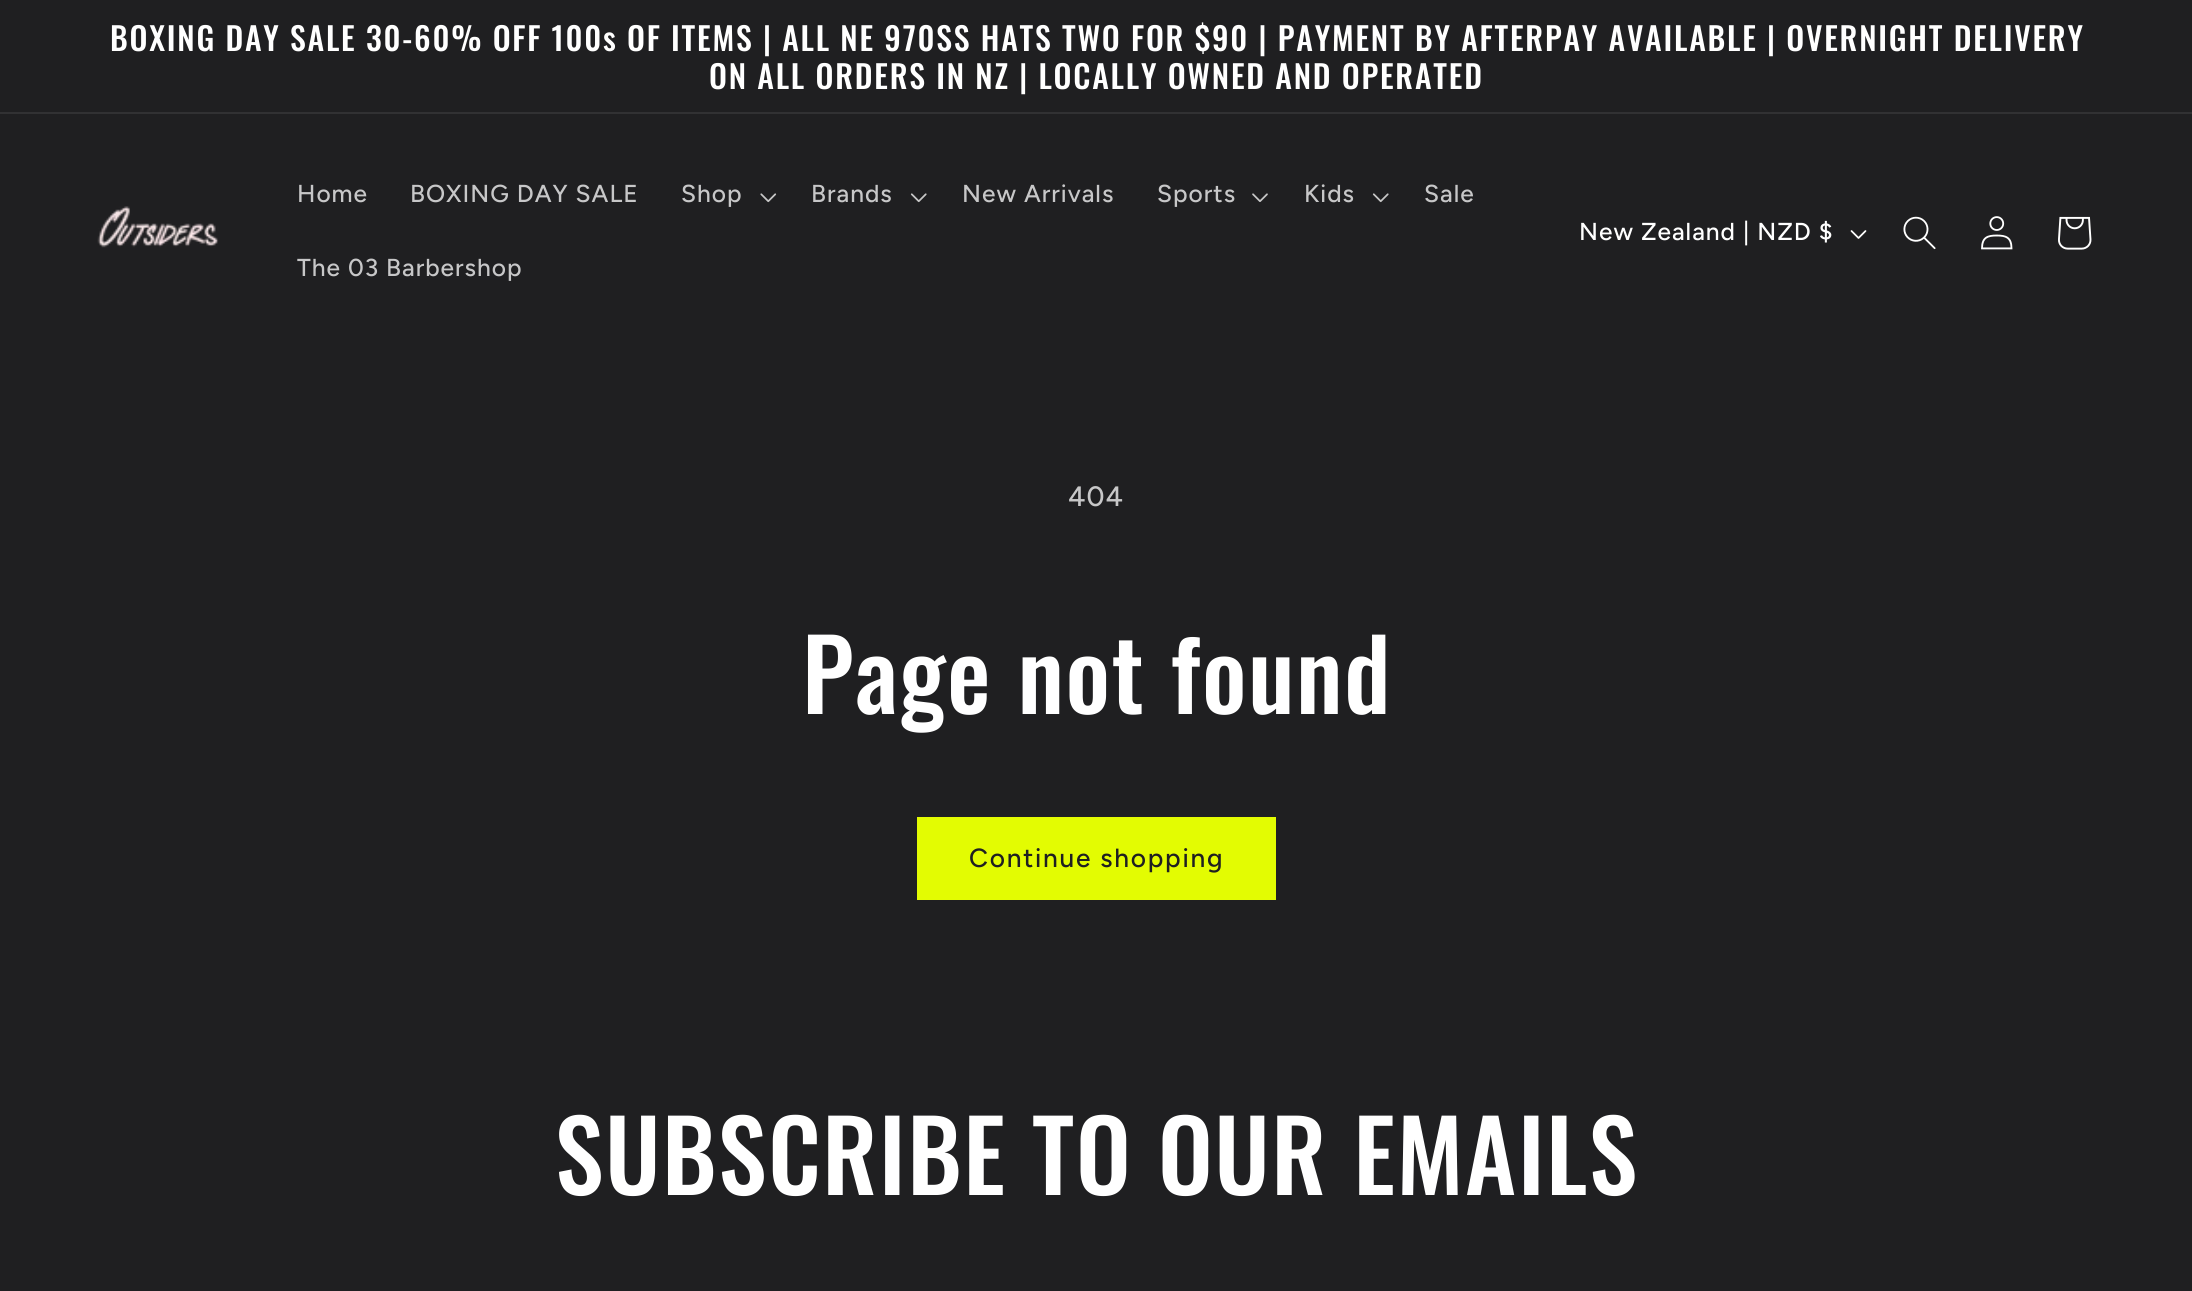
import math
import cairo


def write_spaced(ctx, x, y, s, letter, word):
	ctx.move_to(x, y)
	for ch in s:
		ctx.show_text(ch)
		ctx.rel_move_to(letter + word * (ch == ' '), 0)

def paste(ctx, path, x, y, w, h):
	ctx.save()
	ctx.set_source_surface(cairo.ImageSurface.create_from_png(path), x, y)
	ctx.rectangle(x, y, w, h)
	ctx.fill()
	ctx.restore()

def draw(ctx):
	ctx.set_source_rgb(0.122, 0.122, 0.129)
	ctx.paint()
	ctx.set_source_rgb(0.192, 0.192, 0.2)
	ctx.rectangle(0, 112, 2192, 2)
	ctx.fill()
	ctx.select_font_face('Oswald Medium')
	ctx.set_font_size(31.85)
	ctx.set_source_rgb(1, 1, 1)
	write_spaced(ctx, 110, 51, 'BOXING DAY SALE 30-60% OFF 100s OF ITEMS | ALL NE 970SS HATS TWO FOR $90 | PAYMENT BY AFTERPAY AVAILABLE | OVERNIGHT DELIVERY', 1.75, 0)
	write_spaced(ctx, 709, 89, 'ON ALL ORDERS IN NZ | LOCALLY OWNED AND OPERATED', 1.75, 0)
	paste(ctx, 'media/1.png', 97, 206, 122, 42)
	ctx.select_font_face('Figtree Medium')
	ctx.set_font_size(24.5)
	ctx.set_source_rgb(0.78, 0.78, 0.784)
	for x, y, s in [
		(297, 202, 'Home'),
		(410, 202, 'BOXING DAY SALE'),
		(681, 202, 'Shop'),
	]:
		write_spaced(ctx, x, y, s, 1, 0)
	paste(ctx, 'media/2.png', 760, 193, 17, 10)
	write_spaced(ctx, 811, 202, 'Brands', 1, 0)
	paste(ctx, 'media/3.png', 910, 193, 17, 10)
	write_spaced(ctx, 962, 202, 'New Arrivals', 1, 0)
	write_spaced(ctx, 1157, 202, 'Sports', 1, 0)
	paste(ctx, 'media/4.png', 1252, 193, 16, 9)
	write_spaced(ctx, 1304, 202, 'Kids', 1, 0)
	paste(ctx, 'media/3.png', 1372, 193, 17, 10)
	write_spaced(ctx, 1424, 202, 'Sale', 1, 0)
	write_spaced(ctx, 297, 276, 'The 03 Barbershop', 1, 0)
	ctx.set_source_rgb(1, 1, 1)
	write_spaced(ctx, 1579, 240, 'New Zealand | NZD $', 1, 0)
	paste(ctx, 'media/5.png', 1850, 230, 17, 9)
	paste(ctx, 'media/6.png', 1903, 216, 33, 34)
	paste(ctx, 'media/7.png', 1981, 216, 32, 34)
	paste(ctx, 'media/8.png', 2058, 216, 34, 34)
	ctx.set_font_size(28)
	ctx.set_source_rgb(0.78, 0.78, 0.784)
	write_spaced(ctx, 1068, 506, '404', 1, 0)
	ctx.select_font_face('Oswald Medium')
	ctx.set_font_size(98)
	ctx.set_source_rgb(1, 1, 1)
	write_spaced(ctx, 802, 714, 'Page not found', 1.5, 0)
	ctx.set_source_rgb(0.89, 0.988, 0.008)
	ctx.rectangle(917, 817, 359, 83)
	ctx.fill()
	ctx.select_font_face('Figtree Medium')
	ctx.set_font_size(26.25)
	ctx.set_source_rgb(0.122, 0.122, 0.129)
	write_spaced(ctx, 969, 867, 'Continue shopping', 1.75, 0)
	ctx.select_font_face('Oswald Medium')
	ctx.set_font_size(98)
	ctx.set_source_rgb(1, 1, 1)
	write_spaced(ctx, 555, 1195, 'SUBSCRIBE TO OUR EMAILS', 1.5, 0)


surface = cairo.ImageSurface(cairo.FORMAT_RGB24, 2192, 1291)
ctx = cairo.Context(surface)
options = cairo.FontOptions()
options.set_hint_metrics(cairo.HINT_METRICS_OFF)
options.set_hint_style(cairo.HINT_STYLE_NONE)
ctx.set_font_options(options)
ctx.set_miter_limit(4)
draw(ctx)
surface.write_to_png('image.png')
